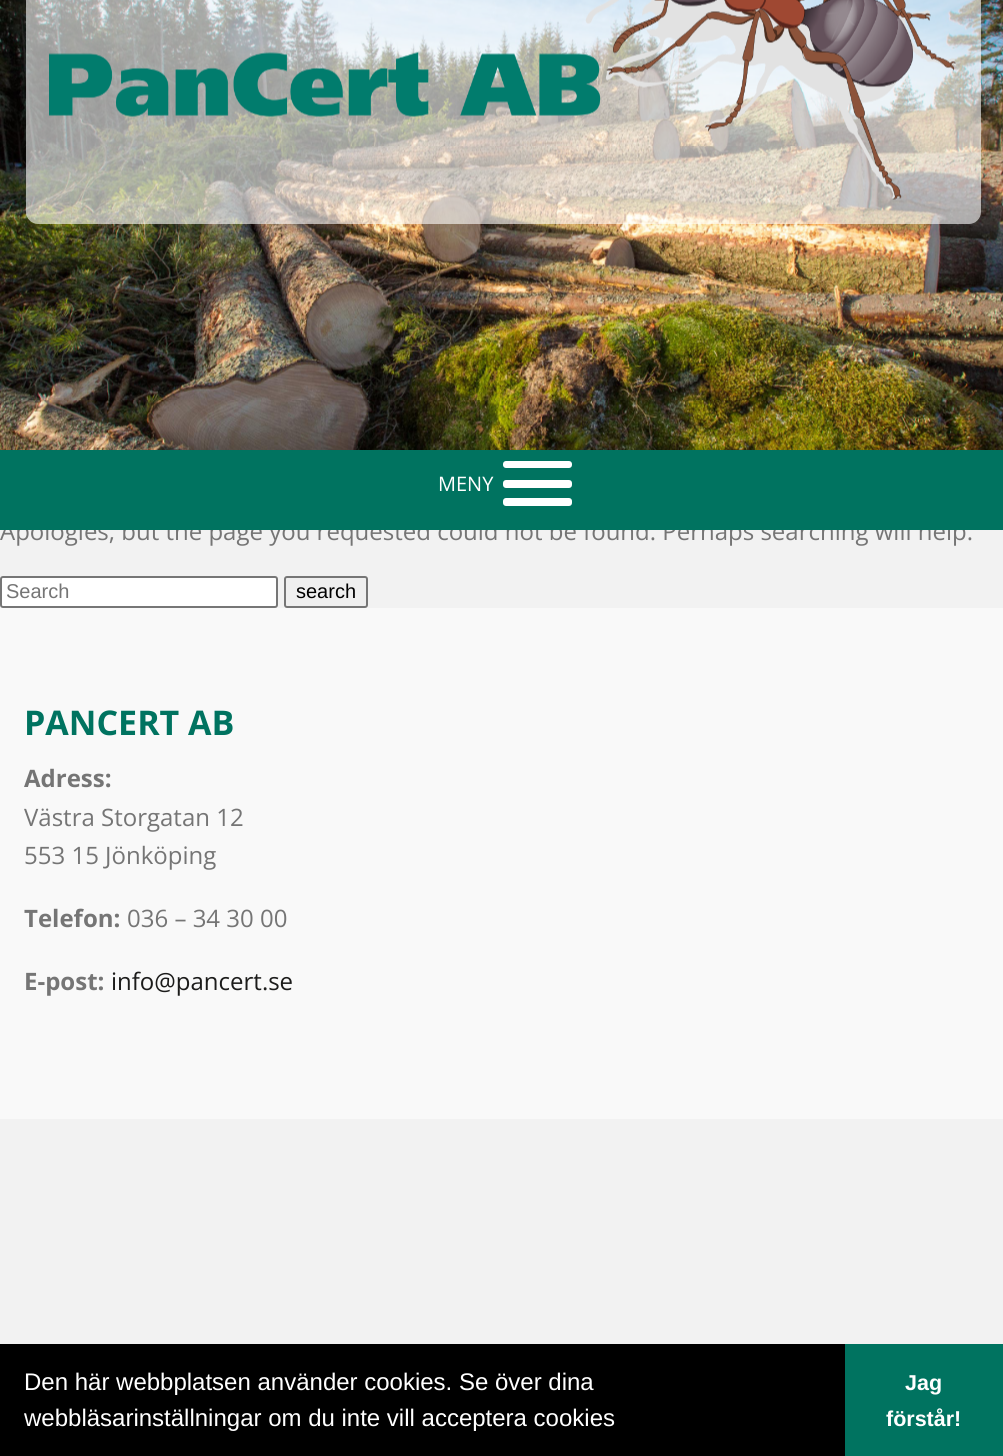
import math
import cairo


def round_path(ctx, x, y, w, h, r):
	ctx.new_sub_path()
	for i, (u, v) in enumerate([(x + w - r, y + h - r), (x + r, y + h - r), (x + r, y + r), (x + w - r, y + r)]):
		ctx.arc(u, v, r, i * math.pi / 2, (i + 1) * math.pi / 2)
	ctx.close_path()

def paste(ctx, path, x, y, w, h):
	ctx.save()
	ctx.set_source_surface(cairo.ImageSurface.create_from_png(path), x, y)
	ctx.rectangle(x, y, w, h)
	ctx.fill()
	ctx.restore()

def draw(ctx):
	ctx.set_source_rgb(0.949, 0.949, 0.949)
	ctx.paint()
	paste(ctx, 'media/1.png', 0, 0, 1003, 450)
	ctx.set_source_rgba(1, 1, 1, 0.6)
	ctx.new_path()
	ctx.move_to(26, 0)
	ctx.line_to(981, 0)
	ctx.line_to(981, 212)
	ctx.curve_to(981, 218.5, 975.5, 224, 969, 224)
	ctx.line_to(38, 224)
	ctx.curve_to(31.5, 224, 26, 218.5, 26, 212)
	ctx.close_path()
	ctx.fill()
	paste(ctx, 'media/2.png', 49, 0, 907, 200)
	ctx.select_font_face('Open Sans')
	ctx.set_font_size(24)
	ctx.set_source_rgb(0.459, 0.459, 0.459)
	ctx.move_to(0, 540)
	ctx.show_text('Apologies, but the page you requested could not be found. Perhaps searching will help.')
	ctx.set_source_rgb(0, 0.451, 0.376)
	ctx.rectangle(0, 450, 1003, 80)
	ctx.fill()
	ctx.set_source_rgb(1, 1, 1)
	round_path(ctx, 503, 461, 69, 7, 3)
	ctx.fill()
	ctx.set_font_size(20)
	ctx.move_to(438, 491)
	ctx.show_text('MENY')
	round_path(ctx, 503, 480, 69, 8, 3)
	ctx.fill()
	round_path(ctx, 503, 498, 69, 8, 3)
	ctx.fill()
	round_path(ctx, 1, 577, 276, 30, 2)
	ctx.fill_preserve()
	ctx.set_source_rgb(0.463, 0.463, 0.463)
	ctx.stroke()
	ctx.select_font_face('Liberation Sans')
	ctx.set_source_rgb(0.459, 0.459, 0.459)
	ctx.move_to(6, 598)
	ctx.show_text('Search')
	ctx.set_source_rgb(0.937, 0.937, 0.937)
	round_path(ctx, 285, 577, 82, 30, 2)
	ctx.fill_preserve()
	ctx.set_source_rgb(0.463, 0.463, 0.463)
	ctx.stroke()
	ctx.set_source_rgb(0, 0, 0)
	ctx.move_to(296, 598)
	ctx.show_text('search')
	ctx.set_source_rgb(0.976, 0.976, 0.976)
	ctx.rectangle(0, 608, 1003, 511)
	ctx.fill()
	ctx.select_font_face('Open Sans', cairo.FONT_SLANT_NORMAL, cairo.FONT_WEIGHT_BOLD)
	ctx.set_font_size(34)
	ctx.set_source_rgb(0, 0.451, 0.376)
	ctx.move_to(24, 735)
	ctx.show_text('PANCERT AB')
	ctx.set_font_size(24)
	ctx.set_source_rgb(0.459, 0.459, 0.459)
	ctx.move_to(24, 787)
	ctx.show_text('Adress:')
	ctx.select_font_face('Open Sans')
	ctx.move_to(24, 826)
	ctx.show_text('Västra Storgatan 12')
	ctx.move_to(24, 864)
	ctx.show_text('553 15 Jönköping')
	ctx.select_font_face('Open Sans', cairo.FONT_SLANT_NORMAL, cairo.FONT_WEIGHT_BOLD)
	ctx.move_to(24, 927)
	ctx.show_text('Telefon:')
	ctx.select_font_face('Open Sans')
	ctx.move_to(127, 927)
	ctx.show_text('036 – 34 30 00')
	ctx.select_font_face('Open Sans', cairo.FONT_SLANT_NORMAL, cairo.FONT_WEIGHT_BOLD)
	ctx.move_to(24, 990)
	ctx.show_text('E-post:')
	ctx.select_font_face('Open Sans')
	ctx.set_source_rgb(0.11, 0.11, 0.106)
	ctx.move_to(111, 990)
	ctx.show_text('info@pancert.se')
	ctx.set_source_rgb(0, 0, 0)
	ctx.rectangle(0, 1344, 845, 112)
	ctx.fill()
	ctx.select_font_face('Liberation Sans')
	ctx.set_source_rgb(1, 1, 1)
	ctx.move_to(24, 1390)
	ctx.show_text('Den här webbplatsen använder cookies. Se över dina')
	ctx.move_to(24, 1426)
	ctx.show_text('webbläsarinställningar om du inte vill acceptera cookies')
	ctx.set_source_rgb(0, 0.451, 0.376)
	ctx.rectangle(845, 1344, 158, 112)
	ctx.fill()
	ctx.select_font_face('Liberation Sans', cairo.FONT_SLANT_NORMAL, cairo.FONT_WEIGHT_BOLD)
	ctx.set_font_size(21.5)
	ctx.set_source_rgb(1, 1, 1)
	ctx.move_to(905, 1390)
	ctx.show_text('Jag')
	ctx.move_to(886, 1426)
	ctx.show_text('förstår!')


surface = cairo.ImageSurface(cairo.FORMAT_RGB24, 1003, 1456)
ctx = cairo.Context(surface)
options = cairo.FontOptions()
options.set_hint_metrics(cairo.HINT_METRICS_OFF)
options.set_hint_style(cairo.HINT_STYLE_NONE)
ctx.set_font_options(options)
ctx.set_miter_limit(4)
draw(ctx)
surface.write_to_png('image.png')
